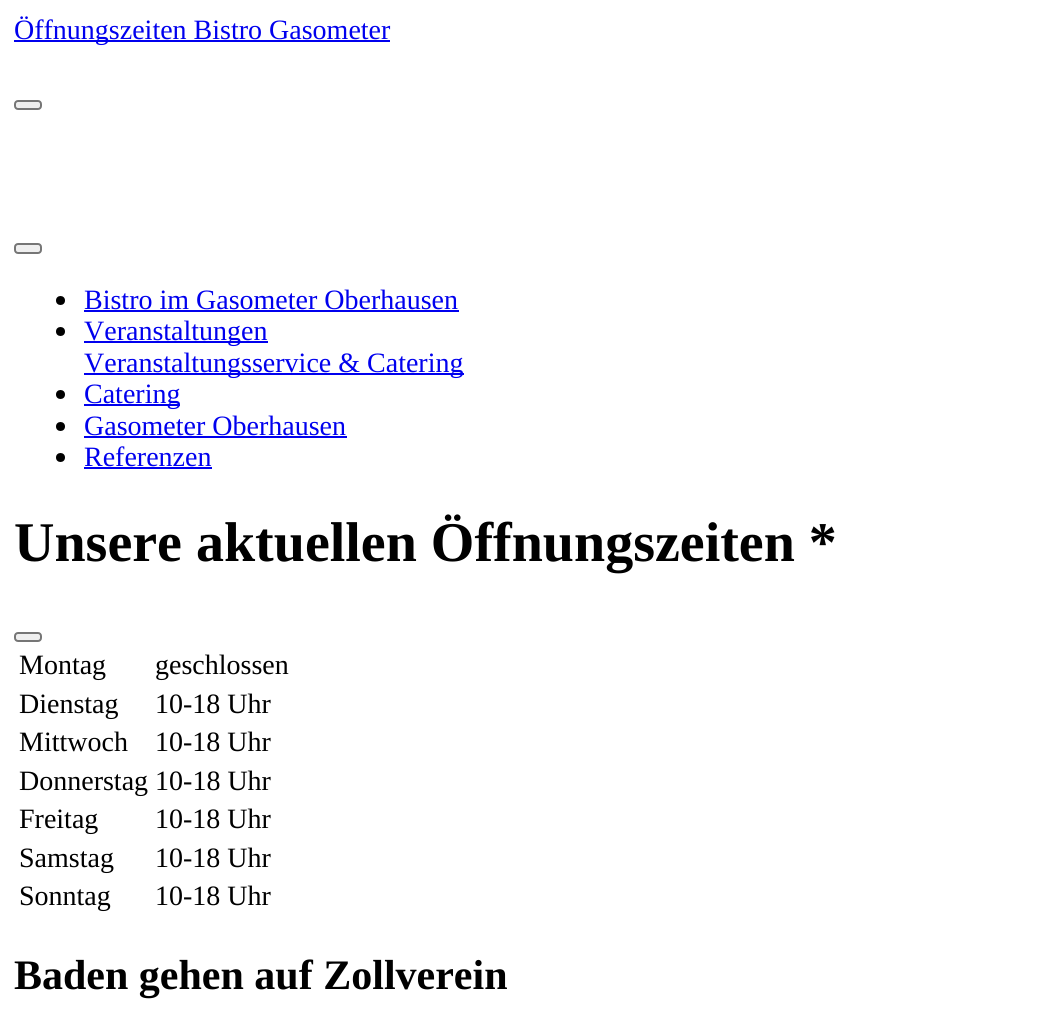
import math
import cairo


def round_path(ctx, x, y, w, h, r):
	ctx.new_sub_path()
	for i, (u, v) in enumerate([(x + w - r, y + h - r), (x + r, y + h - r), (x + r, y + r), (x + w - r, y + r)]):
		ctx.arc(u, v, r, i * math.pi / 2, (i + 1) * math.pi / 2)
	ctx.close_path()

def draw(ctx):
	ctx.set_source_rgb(1, 1, 1)
	ctx.paint()
	ctx.set_source_rgb(0, 0, 0.933)
	ctx.rectangle(14, 40, 376, 2)
	ctx.fill()
	ctx.select_font_face('Liberation Serif')
	ctx.set_font_size(28)
	ctx.move_to(14, 39)
	ctx.show_text('Öffnungszeiten Bistro Gasometer')
	ctx.set_source_rgb(0.937, 0.937, 0.937)
	round_path(ctx, 15, 101, 26, 8, 3)
	ctx.fill_preserve()
	ctx.set_source_rgb(0.463, 0.463, 0.463)
	ctx.stroke()
	ctx.set_source_rgb(0.937, 0.937, 0.937)
	round_path(ctx, 15, 244, 26, 9, 3)
	ctx.fill_preserve()
	ctx.set_source_rgb(0.463, 0.463, 0.463)
	ctx.stroke()
	ctx.set_source_rgb(0, 0, 0)
	ctx.arc(60.5, 300.5, 4.5, 0, 2 * math.pi)
	ctx.fill()
	ctx.set_source_rgb(0, 0, 0.933)
	ctx.move_to(84, 309)
	ctx.show_text('Bistro im Gasometer Oberhausen')
	ctx.rectangle(84, 310, 375, 2)
	ctx.fill()
	ctx.set_source_rgb(0, 0, 0)
	ctx.arc(60.5, 331.5, 4.5, 0, 2 * math.pi)
	ctx.fill()
	ctx.set_source_rgb(0, 0, 0.933)
	ctx.rectangle(84, 341, 184, 2)
	ctx.fill()
	ctx.move_to(84, 340)
	ctx.show_text('Veranstaltungen')
	ctx.rectangle(84, 373, 380, 2)
	ctx.fill()
	ctx.move_to(84, 372)
	ctx.show_text('Veranstaltungsservice & Catering')
	ctx.set_source_rgb(0, 0, 0)
	ctx.new_path()
	ctx.arc(60.5, 394.5, 4.5, 0, 2 * math.pi)
	ctx.fill()
	ctx.set_source_rgb(0, 0, 0.933)
	ctx.rectangle(84, 404, 96, 2)
	ctx.fill()
	ctx.move_to(84, 403)
	ctx.show_text('Catering')
	ctx.set_source_rgb(0, 0, 0)
	ctx.new_path()
	ctx.arc(60.5, 426.5, 4.5, 0, 2 * math.pi)
	ctx.fill()
	ctx.set_source_rgb(0, 0, 0.933)
	ctx.move_to(84, 435)
	ctx.show_text('Gasometer Oberhausen')
	ctx.rectangle(84, 436, 263, 2)
	ctx.fill()
	ctx.set_source_rgb(0, 0, 0)
	ctx.arc(60.5, 457.5, 4.5, 0, 2 * math.pi)
	ctx.fill()
	ctx.set_source_rgb(0, 0, 0.933)
	ctx.move_to(84, 466)
	ctx.show_text('Referenzen')
	ctx.rectangle(84, 467, 128, 2)
	ctx.fill()
	ctx.select_font_face('Liberation Serif', cairo.FONT_SLANT_NORMAL, cairo.FONT_WEIGHT_BOLD)
	ctx.set_font_size(56)
	ctx.set_source_rgb(0, 0, 0)
	ctx.move_to(14, 561)
	ctx.show_text('Unsere aktuellen Öffnungszeiten *')
	ctx.set_source_rgb(0.937, 0.937, 0.937)
	round_path(ctx, 15, 633, 26, 8, 3)
	ctx.fill_preserve()
	ctx.set_source_rgb(0.463, 0.463, 0.463)
	ctx.stroke()
	ctx.select_font_face('Liberation Serif')
	ctx.set_font_size(28)
	ctx.set_source_rgb(0, 0, 0)
	for x, y, s in [
		(19, 674, 'Montag'),
		(155, 674, 'geschlossen'),
		(19, 713, 'Dienstag'),
		(155, 713, '10-18 Uhr'),
		(19, 751, 'Mittwoch'),
		(155, 751, '10-18 Uhr'),
		(19, 790, 'Donnerstag 10-18 Uhr'),
		(19, 828, 'Freitag'),
		(155, 828, '10-18 Uhr'),
		(19, 867, 'Samstag'),
		(155, 867, '10-18 Uhr'),
		(19, 905, 'Sonntag'),
		(155, 905, '10-18 Uhr'),
	]:
		ctx.move_to(x, y)
		ctx.show_text(s)
	ctx.select_font_face('Liberation Serif', cairo.FONT_SLANT_NORMAL, cairo.FONT_WEIGHT_BOLD)
	ctx.set_font_size(42)
	ctx.move_to(14, 989)
	ctx.show_text('Baden gehen auf Zollverein')


surface = cairo.ImageSurface(cairo.FORMAT_RGB24, 1046, 1025)
ctx = cairo.Context(surface)
options = cairo.FontOptions()
options.set_hint_metrics(cairo.HINT_METRICS_OFF)
options.set_hint_style(cairo.HINT_STYLE_NONE)
ctx.set_font_options(options)
ctx.set_miter_limit(4)
draw(ctx)
surface.write_to_png('image.png')
